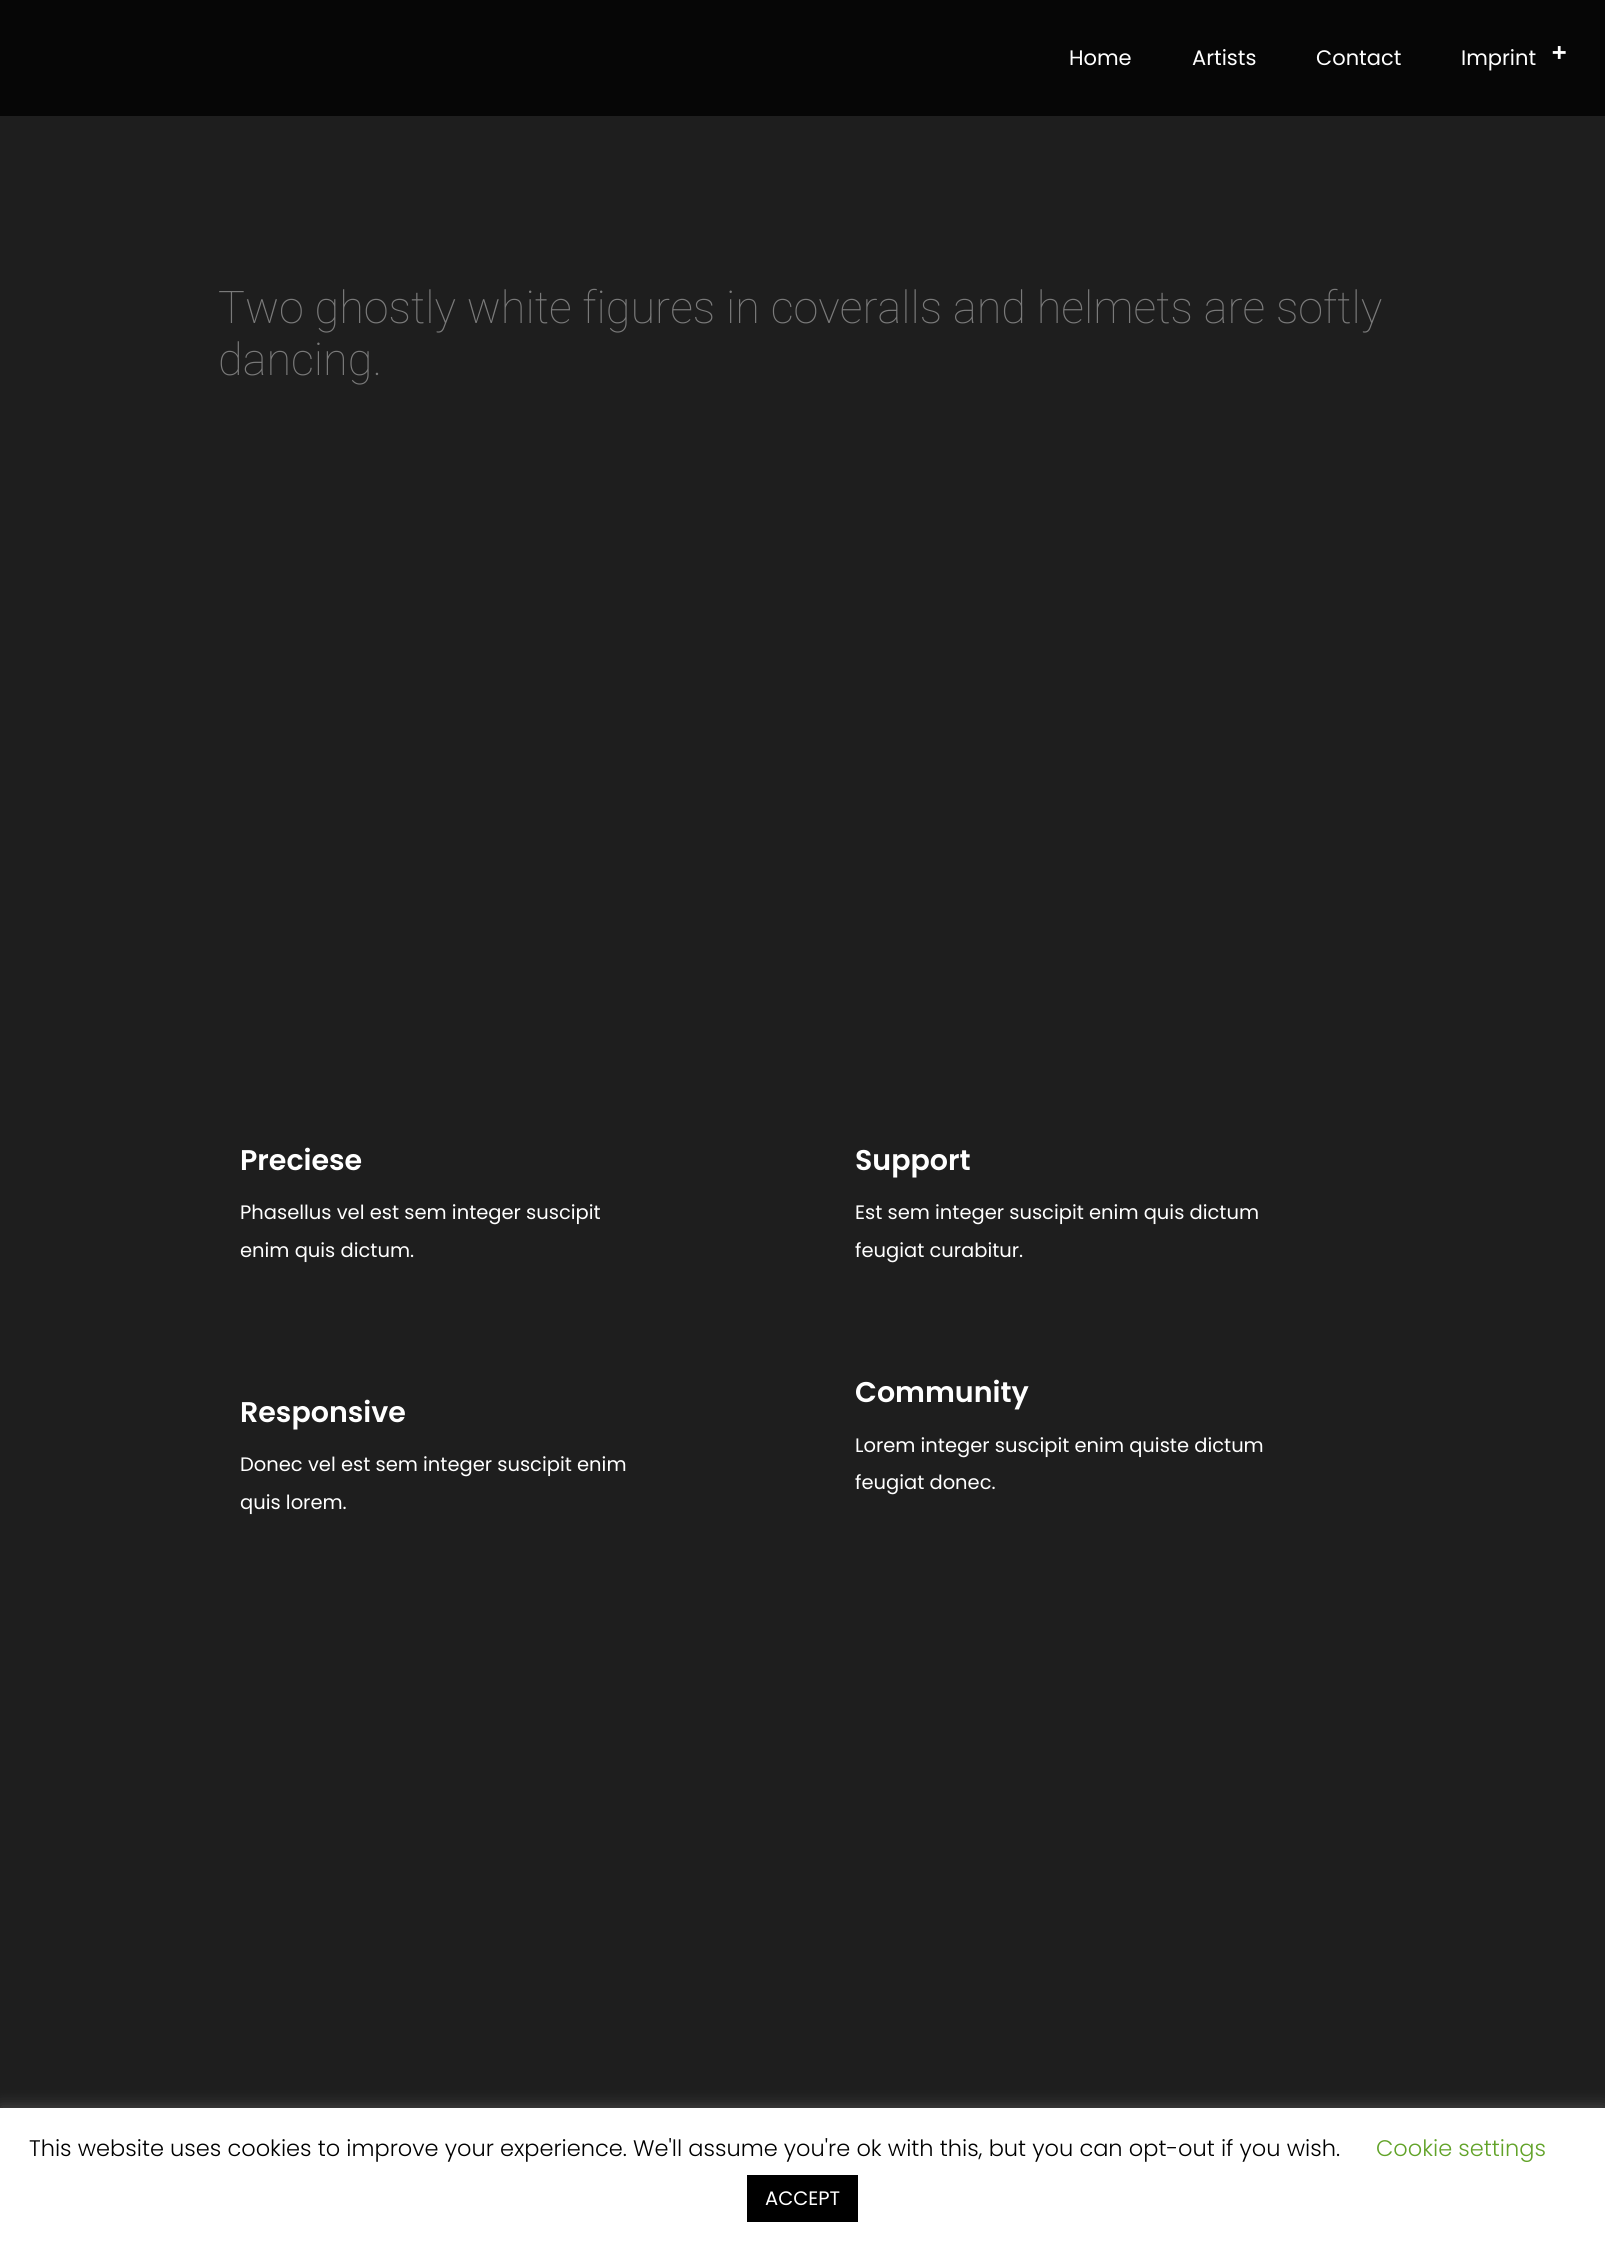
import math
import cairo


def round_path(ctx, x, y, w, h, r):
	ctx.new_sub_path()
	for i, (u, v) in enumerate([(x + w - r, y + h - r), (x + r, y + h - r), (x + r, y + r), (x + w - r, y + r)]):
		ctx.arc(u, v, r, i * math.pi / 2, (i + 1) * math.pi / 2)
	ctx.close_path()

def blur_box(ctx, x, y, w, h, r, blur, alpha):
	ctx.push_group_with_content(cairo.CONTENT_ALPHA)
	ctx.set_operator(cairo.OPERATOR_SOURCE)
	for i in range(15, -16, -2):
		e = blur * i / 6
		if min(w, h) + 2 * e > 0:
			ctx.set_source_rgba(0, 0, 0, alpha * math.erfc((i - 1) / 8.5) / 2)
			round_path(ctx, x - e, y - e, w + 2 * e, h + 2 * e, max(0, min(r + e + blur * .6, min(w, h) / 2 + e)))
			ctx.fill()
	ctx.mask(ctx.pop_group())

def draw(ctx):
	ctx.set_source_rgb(0.118, 0.118, 0.118)
	ctx.paint()
	ctx.set_source_rgb(0.024, 0.024, 0.024)
	ctx.rectangle(0, 0, 1605, 116)
	ctx.fill()
	ctx.select_font_face('Poppins')
	ctx.set_font_size(21)
	ctx.set_source_rgb(1, 1, 1)
	for x, y, s in [
		(1069, 65, 'Home'),
		(1192, 65, 'Artists'),
		(1316, 65, 'Contact'),
		(1461, 65, 'Imprint'),
	]:
		ctx.move_to(x, y)
		ctx.show_text(s)
	ctx.select_font_face('DejaVu Sans Mono', cairo.FONT_SLANT_NORMAL, cairo.FONT_WEIGHT_BOLD)
	ctx.set_font_size(24)
	ctx.move_to(1552, 60)
	ctx.show_text('+')
	ctx.select_font_face('Roboto Thin')
	ctx.set_font_size(45)
	ctx.set_source_rgb(0.478, 0.478, 0.478)
	ctx.move_to(218, 323)
	ctx.show_text('Two ghostly white figures in coveralls and helmets are softly')
	ctx.move_to(218, 375)
	ctx.show_text('dancing.')
	ctx.select_font_face('Poppins SemiBold')
	ctx.set_font_size(28.5)
	ctx.set_source_rgb(1, 1, 1)
	ctx.move_to(240, 1170)
	ctx.show_text('Preciese')
	ctx.select_font_face('Poppins')
	ctx.set_font_size(19.5)
	ctx.move_to(240, 1219)
	ctx.show_text('Phasellus vel est sem integer suscipit')
	ctx.move_to(240, 1257)
	ctx.show_text('enim quis dictum.')
	ctx.select_font_face('Poppins SemiBold')
	ctx.set_font_size(28.5)
	ctx.move_to(240, 1422)
	ctx.show_text('Responsive')
	ctx.select_font_face('Poppins')
	ctx.set_font_size(19.5)
	ctx.move_to(240, 1471)
	ctx.show_text('Donec vel est sem integer suscipit enim')
	ctx.move_to(240, 1509)
	ctx.show_text('quis lorem.')
	ctx.select_font_face('Poppins SemiBold')
	ctx.set_font_size(28.5)
	ctx.move_to(855, 1170)
	ctx.show_text('Support')
	ctx.select_font_face('Poppins')
	ctx.set_font_size(19.5)
	ctx.move_to(855, 1219)
	ctx.show_text('Est sem integer suscipit enim quis dictum')
	ctx.move_to(855, 1257)
	ctx.show_text('feugiat curabitur.')
	ctx.select_font_face('Poppins SemiBold')
	ctx.set_font_size(28.5)
	ctx.move_to(855, 1402)
	ctx.show_text('Community')
	ctx.select_font_face('Poppins')
	ctx.set_font_size(19.5)
	ctx.move_to(855, 1452)
	ctx.show_text('Lorem integer suscipit enim quiste dictum')
	ctx.move_to(855, 1489)
	ctx.show_text('feugiat donec.')
	ctx.set_source_rgb(0.675, 0.671, 0.671)
	blur_box(ctx, 0, 2106, 1605, 140, 0, 7.5, 0.3)
	ctx.set_source_rgb(1, 1, 1)
	ctx.rectangle(0, 2108, 1605, 138)
	ctx.fill()
	ctx.select_font_face('Poppins Light')
	ctx.set_font_size(22.5)
	ctx.set_source_rgb(0, 0, 0)
	ctx.move_to(29, 2156)
	ctx.show_text('This website uses cookies to improve your experience. We\'ll assume you\'re ok with this, but you can opt-out if you wish.')
	ctx.set_source_rgb(0.384, 0.639, 0.161)
	ctx.move_to(1376, 2156)
	ctx.show_text('Cookie settings')
	ctx.set_source_rgb(0, 0, 0)
	ctx.rectangle(747, 2175, 111, 47)
	ctx.fill()
	ctx.select_font_face('Poppins')
	ctx.set_font_size(19.5)
	ctx.set_source_rgb(1, 1, 1)
	ctx.move_to(765, 2205)
	ctx.show_text('ACCEPT')


surface = cairo.ImageSurface(cairo.FORMAT_RGB24, 1605, 2246)
ctx = cairo.Context(surface)
options = cairo.FontOptions()
options.set_hint_metrics(cairo.HINT_METRICS_OFF)
options.set_hint_style(cairo.HINT_STYLE_NONE)
ctx.set_font_options(options)
ctx.set_miter_limit(4)
draw(ctx)
surface.write_to_png('image.png')
